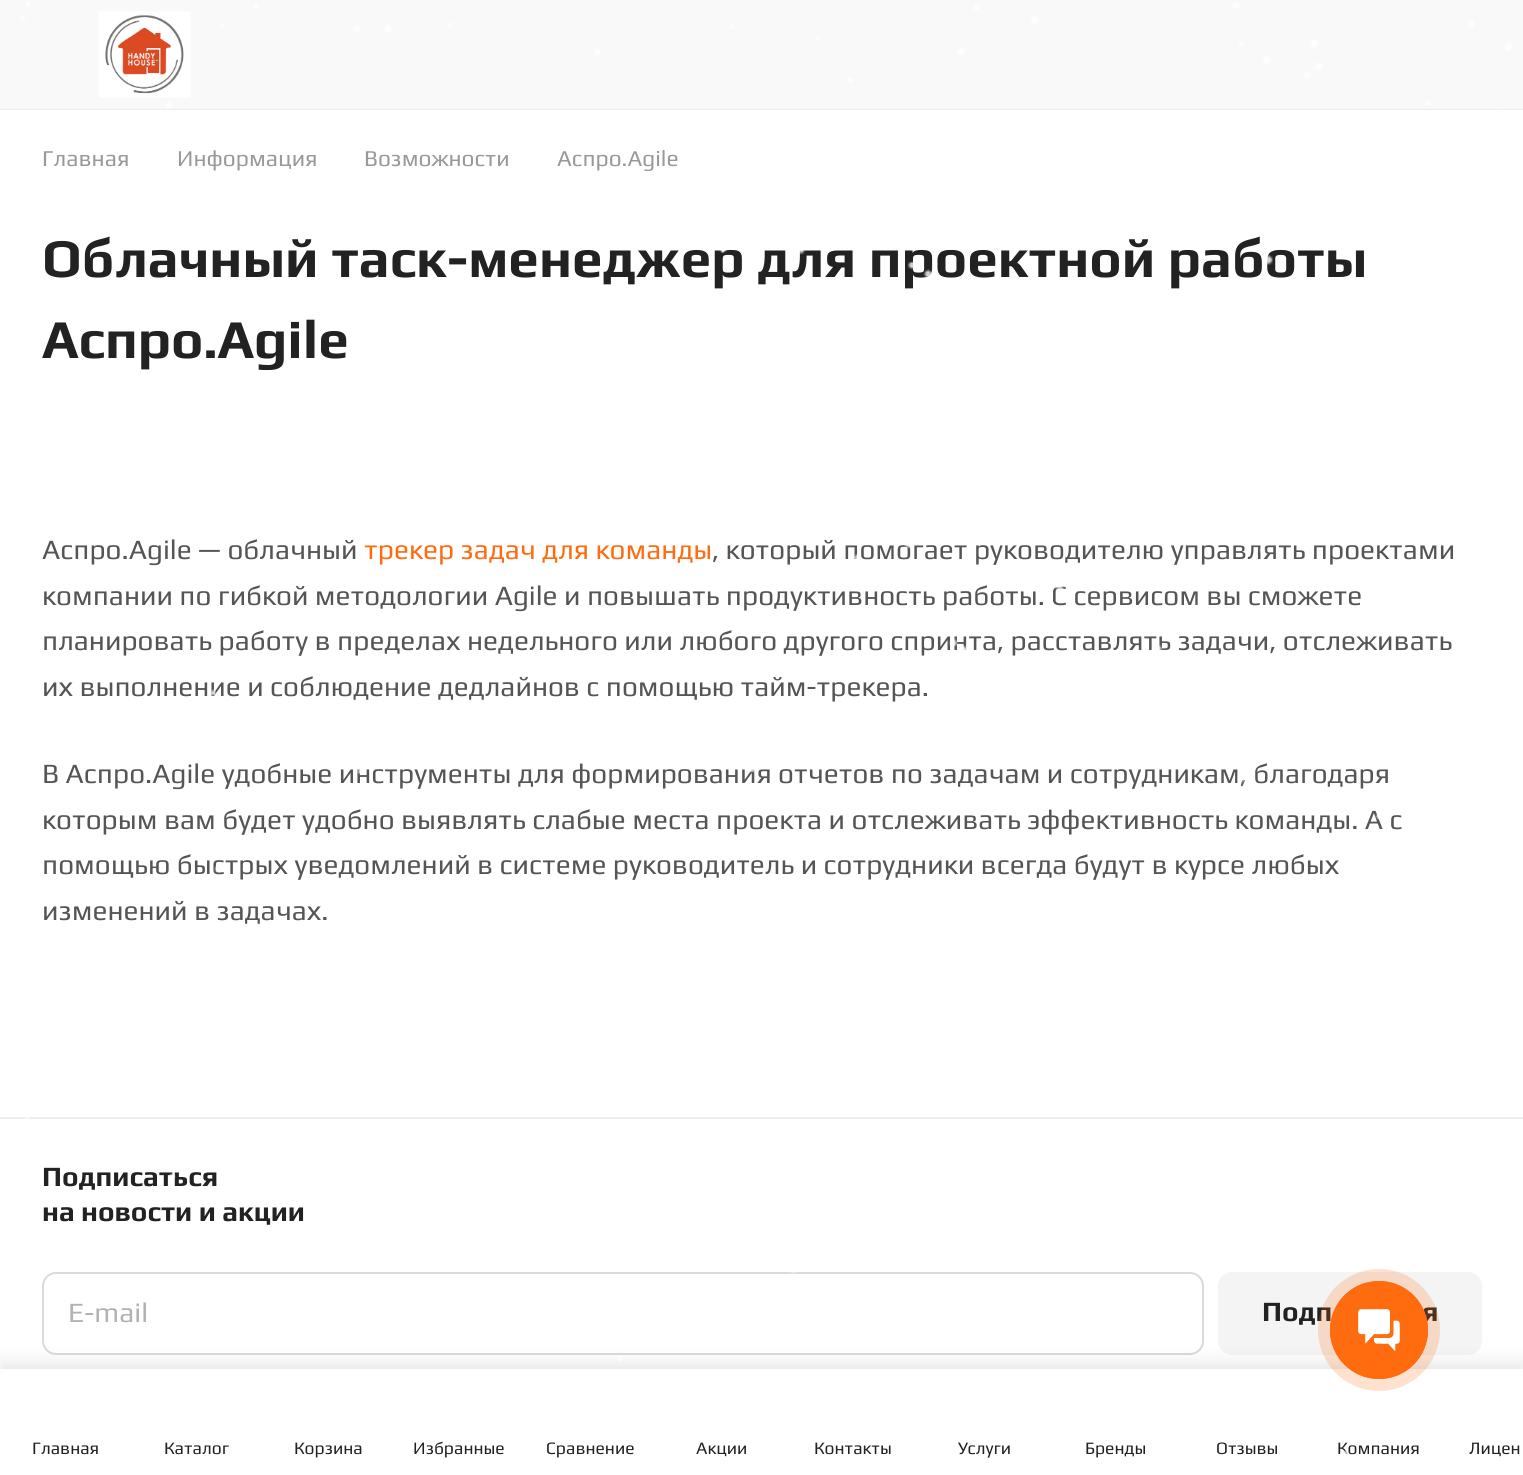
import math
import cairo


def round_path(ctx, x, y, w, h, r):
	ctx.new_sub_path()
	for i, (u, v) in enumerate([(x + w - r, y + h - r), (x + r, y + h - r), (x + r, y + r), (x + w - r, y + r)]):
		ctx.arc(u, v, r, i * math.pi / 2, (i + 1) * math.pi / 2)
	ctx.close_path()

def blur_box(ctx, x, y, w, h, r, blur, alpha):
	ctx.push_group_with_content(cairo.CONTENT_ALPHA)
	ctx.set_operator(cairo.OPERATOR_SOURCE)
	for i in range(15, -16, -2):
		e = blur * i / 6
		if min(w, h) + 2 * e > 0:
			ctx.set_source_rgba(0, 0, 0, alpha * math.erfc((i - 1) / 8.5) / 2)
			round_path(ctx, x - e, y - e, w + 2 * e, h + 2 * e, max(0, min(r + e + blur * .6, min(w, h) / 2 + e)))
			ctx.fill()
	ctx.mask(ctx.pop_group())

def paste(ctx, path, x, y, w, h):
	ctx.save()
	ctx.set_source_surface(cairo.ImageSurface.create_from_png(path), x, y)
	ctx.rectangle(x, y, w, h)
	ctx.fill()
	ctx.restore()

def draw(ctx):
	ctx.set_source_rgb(1, 1, 1)
	ctx.paint()
	ctx.set_source_rgb(0.929, 0.929, 0.929)
	ctx.rectangle(0, 109, 1523, 1)
	ctx.fill()
	ctx.set_source_rgb(0.973, 0.973, 0.973)
	ctx.rectangle(0, 0, 1523, 109)
	ctx.fill()
	paste(ctx, 'media/2.png', 98, 11, 93, 87)
	ctx.select_font_face('Play')
	ctx.set_font_size(22.75)
	ctx.set_source_rgb(0.6, 0.6, 0.6)
	for x, y, s in [
		(42, 166, 'Главная'),
		(177, 166, 'Информация'),
		(364, 166, 'Возможности'),
		(557, 166, 'Аспро.Agile'),
	]:
		ctx.move_to(x, y)
		ctx.show_text(s)
	ctx.select_font_face('Play', cairo.FONT_SLANT_NORMAL, cairo.FONT_WEIGHT_BOLD)
	ctx.set_font_size(54.75)
	ctx.set_source_rgb(0.133, 0.133, 0.133)
	ctx.move_to(42, 277)
	ctx.show_text('Облачный таск-менеджер для проектной работы')
	ctx.move_to(42, 358)
	ctx.show_text('Аспро.Agile')
	ctx.select_font_face('Play')
	ctx.set_font_size(28)
	ctx.set_source_rgb(0.333, 0.333, 0.333)
	ctx.move_to(42, 559)
	ctx.show_text('Аспро.Agile — облачный')
	ctx.set_source_rgb(1, 0.424, 0.063)
	ctx.move_to(364, 559)
	ctx.show_text('трекер задач для команды')
	ctx.set_source_rgb(0.333, 0.333, 0.333)
	for x, y, s in [
		(712, 559, ', который помогает руководителю управлять проектами'),
		(42, 605, 'компании по гибкой методологии Agile и повышать продуктивность работы. С сервисом вы сможете'),
		(42, 650, 'планировать работу в пределах недельного или любого другого спринта, расставлять задачи, отслеживать'),
		(42, 696, 'их выполнение и соблюдение дедлайнов с помощью тайм-трекера.'),
		(42, 783, 'В Аспро.Agile удобные инструменты для формирования отчетов по задачам и сотрудникам, благодаря'),
		(42, 829, 'которым вам будет удобно выявлять слабые места проекта и отслеживать эффективность команды. А с'),
		(42, 874, 'помощью быстрых уведомлений в системе руководитель и сотрудники всегда будут в курсе любых'),
		(42, 920, 'изменений в задачах.'),
	]:
		ctx.move_to(x, y)
		ctx.show_text(s)
	ctx.set_source_rgb(0.929, 0.929, 0.929)
	ctx.rectangle(0, 1117, 1523, 2)
	ctx.fill()
	ctx.select_font_face('Play', cairo.FONT_SLANT_NORMAL, cairo.FONT_WEIGHT_BOLD)
	ctx.set_source_rgb(0.133, 0.133, 0.133)
	ctx.move_to(42, 1186)
	ctx.show_text('Подписаться')
	ctx.move_to(42, 1221)
	ctx.show_text('на новости и акции')
	round_path(ctx, 43, 1273, 1160, 81, 13)
	ctx.set_source_rgb(0.855, 0.855, 0.855)
	ctx.stroke()
	ctx.select_font_face('Play')
	ctx.set_source_rgb(0.698, 0.698, 0.698)
	ctx.move_to(68, 1322)
	ctx.show_text('E-mail')
	ctx.set_source_rgb(0.957, 0.957, 0.957)
	round_path(ctx, 1219, 1273, 262, 81, 13)
	ctx.fill_preserve()
	ctx.stroke()
	ctx.select_font_face('Play', cairo.FONT_SLANT_NORMAL, cairo.FONT_WEIGHT_BOLD)
	ctx.set_source_rgb(0.133, 0.133, 0.133)
	ctx.move_to(1262, 1321)
	ctx.show_text('Подп')
	ctx.move_to(1422, 1321)
	ctx.show_text('я')
	ctx.set_source_rgb(0, 0, 0)
	blur_box(ctx, 0, 1363, 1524, 107, 0, 9, 0.1)
	ctx.set_source_rgb(1, 1, 1)
	ctx.rectangle(0, 1369, 1523, 106)
	ctx.fill()
	ctx.select_font_face('Play')
	ctx.set_font_size(17.5)
	ctx.set_source_rgb(0.133, 0.133, 0.133)
	for x, y, s in [
		(32, 1454, 'Главная'),
		(164, 1454, 'Каталог'),
		(294, 1454, 'Корзина'),
		(413, 1454, 'Избранные'),
		(546, 1454, 'Сравнение'),
		(696, 1454, 'Акции'),
		(814, 1454, 'Контакты'),
		(958, 1454, 'Услуги'),
		(1085, 1454, 'Бренды'),
		(1216, 1454, 'Отзывы'),
		(1337, 1454, 'Компания'),
		(1469, 1454, 'Лицен'),
	]:
		ctx.move_to(x, y)
		ctx.show_text(s)
	paste(ctx, 'media/1.png', 20, 2, 1492, 1452)
	ctx.set_source_rgba(1, 0.424, 0.059, 0.2)
	ctx.arc(1379, 1330, 61, 0, 2 * math.pi)
	ctx.fill()
	ctx.arc(1379, 1330, 48.5, 0, 2 * math.pi)
	ctx.set_source_rgb(1, 0.424, 0.059)
	ctx.set_line_width(1)
	ctx.stroke()
	ctx.arc(1379, 1330, 49, 0, 2 * math.pi)
	ctx.fill()
	paste(ctx, 'media/3.png', 1358, 1309, 42, 42)


surface = cairo.ImageSurface(cairo.FORMAT_RGB24, 1523, 1475)
ctx = cairo.Context(surface)
options = cairo.FontOptions()
options.set_hint_metrics(cairo.HINT_METRICS_OFF)
options.set_hint_style(cairo.HINT_STYLE_NONE)
ctx.set_font_options(options)
ctx.set_miter_limit(4)
draw(ctx)
surface.write_to_png('image.png')
